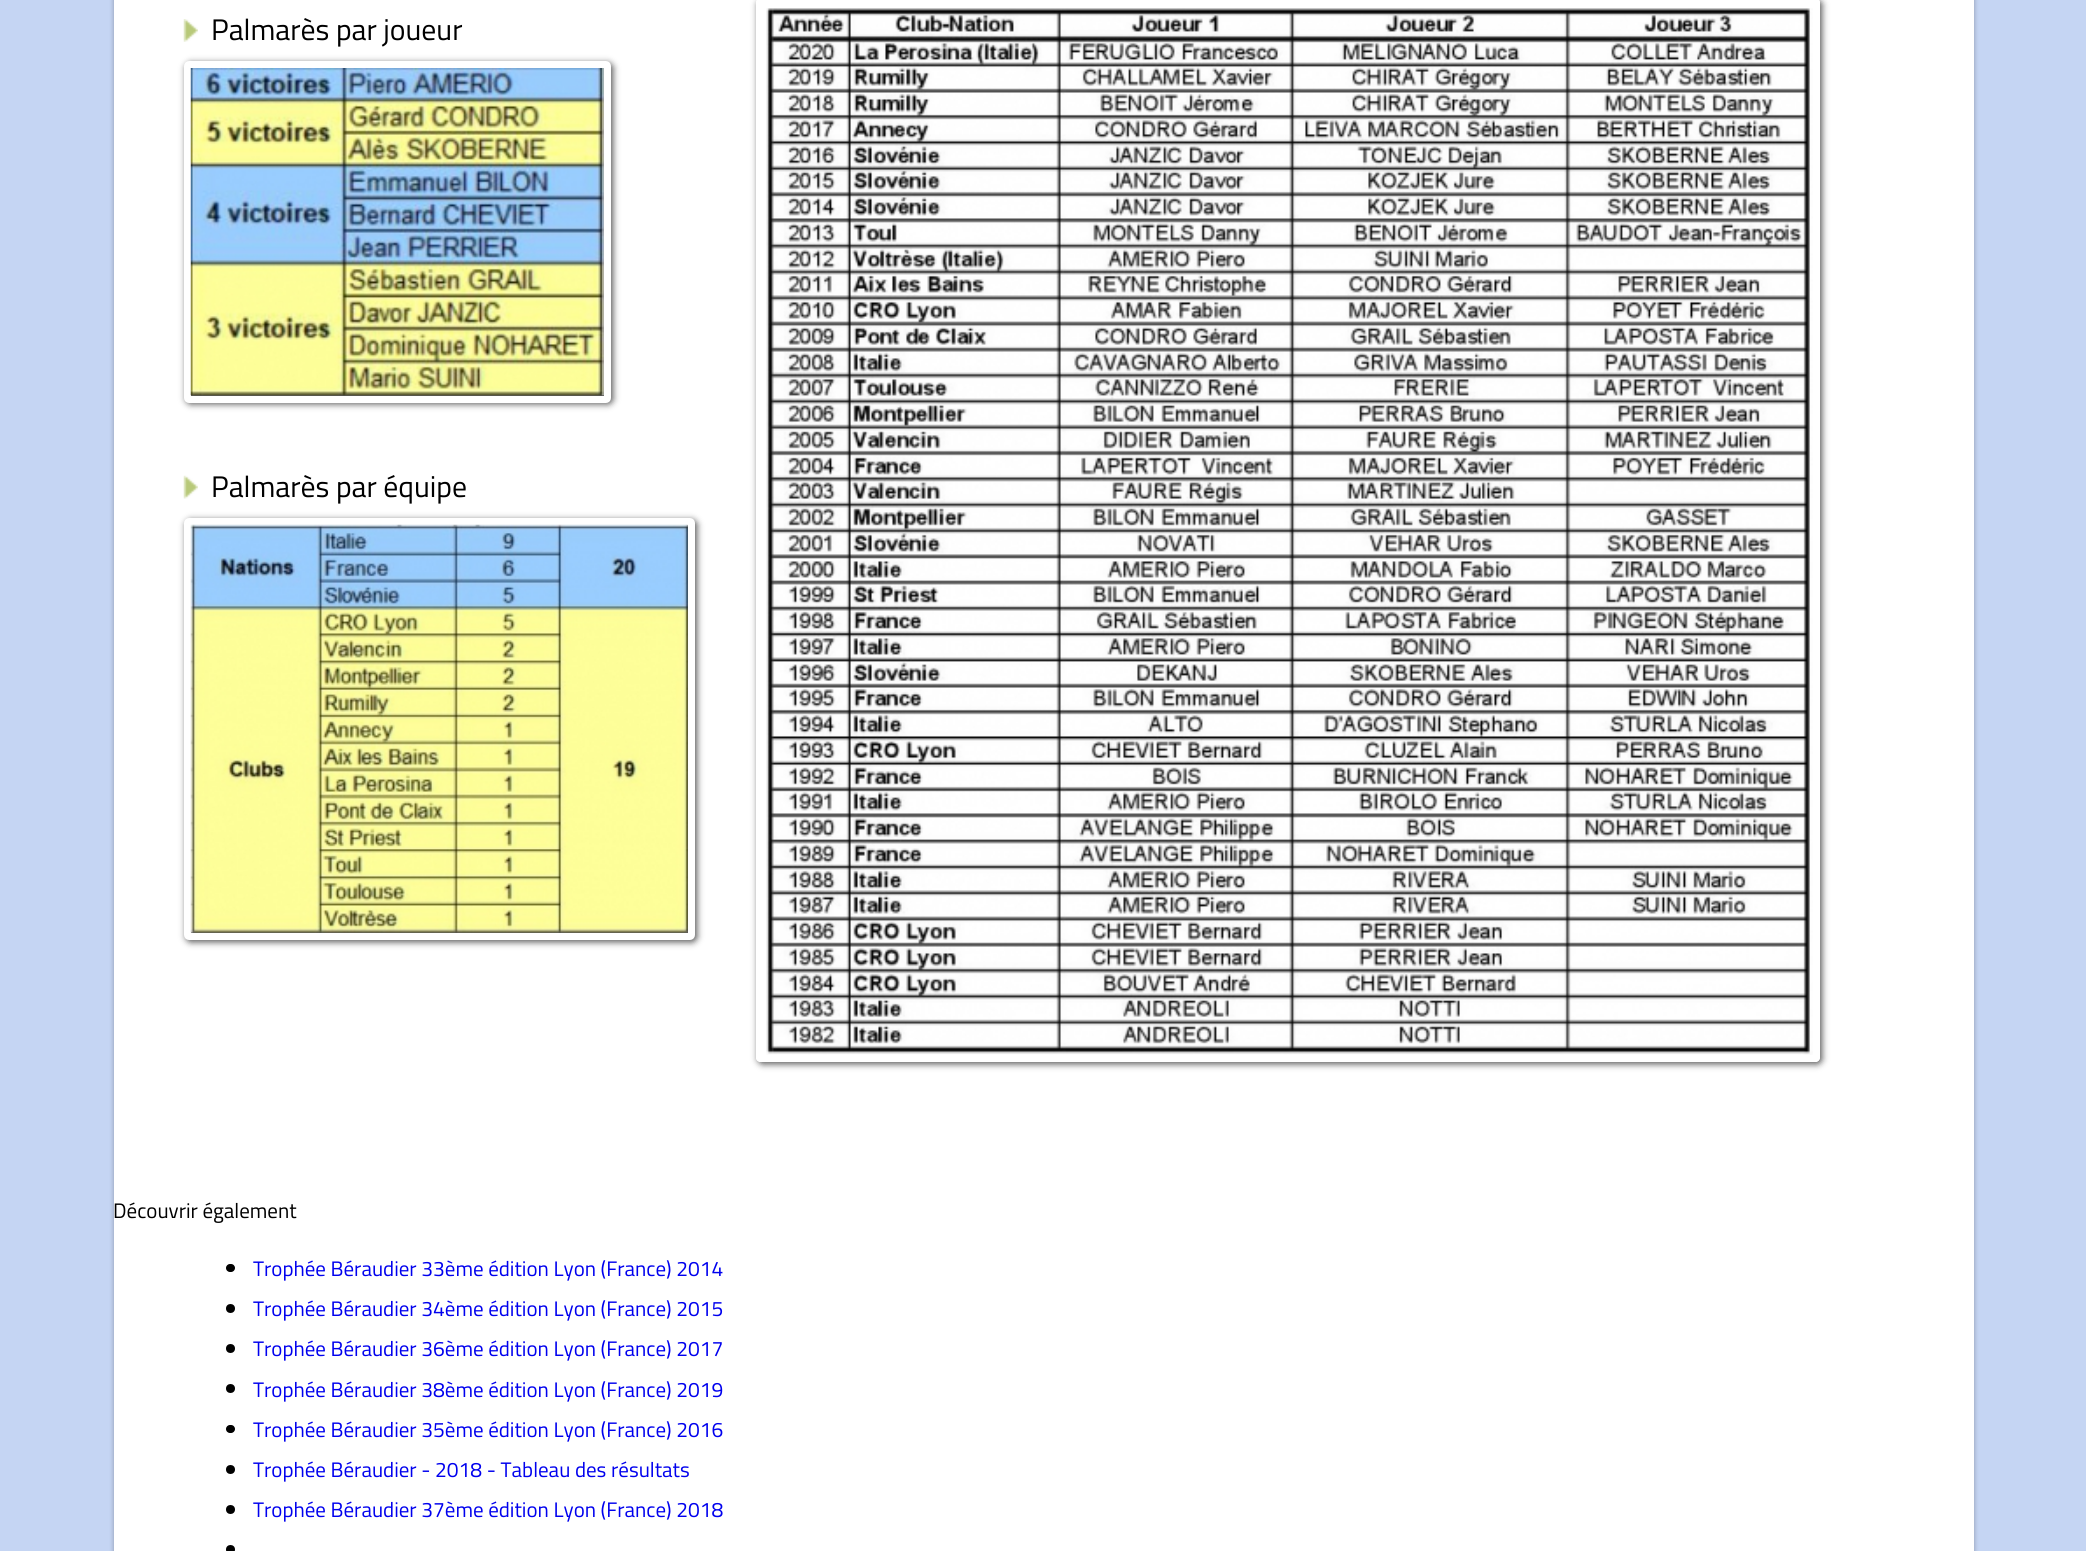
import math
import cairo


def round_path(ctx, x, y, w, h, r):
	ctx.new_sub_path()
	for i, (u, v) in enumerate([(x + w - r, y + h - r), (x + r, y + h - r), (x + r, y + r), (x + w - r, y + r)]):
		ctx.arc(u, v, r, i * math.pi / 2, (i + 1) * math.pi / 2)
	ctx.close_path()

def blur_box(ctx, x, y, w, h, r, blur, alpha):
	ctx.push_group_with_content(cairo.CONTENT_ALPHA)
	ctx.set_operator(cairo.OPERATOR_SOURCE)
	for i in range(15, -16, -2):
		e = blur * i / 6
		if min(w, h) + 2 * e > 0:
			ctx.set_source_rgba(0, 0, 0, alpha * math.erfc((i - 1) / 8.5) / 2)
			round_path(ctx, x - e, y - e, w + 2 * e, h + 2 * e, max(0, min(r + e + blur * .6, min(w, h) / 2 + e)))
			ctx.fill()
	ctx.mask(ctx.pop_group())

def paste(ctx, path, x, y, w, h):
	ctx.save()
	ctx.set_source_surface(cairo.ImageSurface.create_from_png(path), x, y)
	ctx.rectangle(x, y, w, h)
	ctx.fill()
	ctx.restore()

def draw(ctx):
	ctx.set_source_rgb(0.773, 0.835, 0.953)
	ctx.paint()
	ctx.set_source_rgb(0, 0, 0)
	blur_box(ctx, 114, -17, 1860, 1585, 9, 2.5, 0.3)
	ctx.set_source_rgb(1, 1, 1)
	ctx.rectangle(114, 0, 1860, 1551)
	ctx.fill()
	paste(ctx, 'media/1.png', 183, 19, 15, 23)
	ctx.select_font_face('Titillium Web')
	ctx.set_font_size(29.75)
	ctx.set_source_rgb(0, 0, 0)
	ctx.move_to(211, 40)
	ctx.show_text('Palmarès par joueur')
	ctx.set_source_rgb(0.333, 0.333, 0.333)
	blur_box(ctx, 186, 63, 427, 341, 5, 3.5, 1)
	round_path(ctx, 187.5, 64.5, 420, 335, 1.5)
	ctx.set_source_rgb(1, 1, 1)
	ctx.set_line_width(7)
	ctx.stroke()
	paste(ctx, 'media/2.png', 190, 68, 414, 328)
	paste(ctx, 'media/3.png', 183, 475, 15, 24)
	ctx.set_source_rgb(0, 0, 0)
	ctx.move_to(211, 497)
	ctx.show_text('Palmarès par équipe')
	ctx.set_source_rgb(0.333, 0.333, 0.333)
	blur_box(ctx, 186, 520, 511, 422, 5, 3.5, 1)
	round_path(ctx, 187.5, 521.5, 504, 415, 1.5)
	ctx.set_source_rgb(1, 1, 1)
	ctx.stroke()
	paste(ctx, 'media/4.png', 190, 524, 498, 409)
	ctx.save()
	ctx.set_fill_rule(cairo.FILL_RULE_EVEN_ODD)
	ctx.new_path()
	ctx.move_to(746, 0)
	ctx.line_to(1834, 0)
	ctx.line_to(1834, 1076)
	ctx.line_to(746, 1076)
	ctx.close_path()
	ctx.move_to(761, -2)
	ctx.line_to(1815, -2)
	ctx.curve_to(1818, -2, 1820, 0, 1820, 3)
	ctx.line_to(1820, 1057)
	ctx.curve_to(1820, 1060, 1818, 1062, 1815, 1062)
	ctx.line_to(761, 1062)
	ctx.curve_to(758, 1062, 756, 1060, 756, 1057)
	ctx.line_to(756, 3)
	ctx.curve_to(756, 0, 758, -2, 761, -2)
	ctx.close_path()
	ctx.clip()
	ctx.set_source_rgb(0.333, 0.333, 0.333)
	blur_box(ctx, 758, 0, 1064, 1064, 5, 3.5, 1)
	ctx.restore()
	round_path(ctx, 759.5, 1.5, 1057, 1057, 1.5)
	ctx.stroke()
	paste(ctx, 'media/5.png', 766, 8, 1047, 1047)
	ctx.set_font_size(21)
	ctx.set_source_rgb(0, 0, 0)
	ctx.move_to(113, 1218)
	ctx.show_text('Découvrir également')
	round_path(ctx, 226, 1264, 9, 8, 4)
	ctx.fill()
	ctx.set_source_rgb(0, 0, 0.933)
	ctx.move_to(253, 1276)
	ctx.show_text('Trophée Béraudier 33ème édition Lyon (France) 2014')
	ctx.set_source_rgb(0, 0, 0)
	ctx.new_path()
	ctx.arc(230.5, 1308.5, 4.5, 0, 2 * math.pi)
	ctx.fill()
	ctx.set_source_rgb(0, 0, 0.933)
	ctx.move_to(253, 1316)
	ctx.show_text('Trophée Béraudier 34ème édition Lyon (France) 2015')
	ctx.set_source_rgb(0, 0, 0)
	ctx.new_path()
	ctx.arc(230.5, 1348.5, 4.5, 0, 2 * math.pi)
	ctx.fill()
	ctx.set_source_rgb(0, 0, 0.933)
	ctx.move_to(253, 1356)
	ctx.show_text('Trophée Béraudier 36ème édition Lyon (France) 2017')
	ctx.set_source_rgb(0, 0, 0)
	ctx.new_path()
	ctx.arc(230.5, 1388.5, 4.5, 0, 2 * math.pi)
	ctx.fill()
	ctx.set_source_rgb(0, 0, 0.933)
	ctx.move_to(253, 1397)
	ctx.show_text('Trophée Béraudier 38ème édition Lyon (France) 2019')
	ctx.set_source_rgb(0, 0, 0)
	round_path(ctx, 226, 1425, 9, 8, 4)
	ctx.fill()
	ctx.set_source_rgb(0, 0, 0.933)
	ctx.move_to(253, 1437)
	ctx.show_text('Trophée Béraudier 35ème édition Lyon (France) 2016')
	ctx.set_source_rgb(0, 0, 0)
	ctx.new_path()
	ctx.arc(230.5, 1469.5, 4.5, 0, 2 * math.pi)
	ctx.fill()
	ctx.set_source_rgb(0, 0, 0.933)
	ctx.move_to(253, 1477)
	ctx.show_text('Trophée Béraudier - 2018 - Tableau des résultats')
	ctx.set_source_rgb(0, 0, 0)
	ctx.new_path()
	ctx.arc(230.5, 1509.5, 4.5, 0, 2 * math.pi)
	ctx.fill()
	ctx.set_source_rgb(0, 0, 0.933)
	ctx.move_to(253, 1517)
	ctx.show_text('Trophée Béraudier 37ème édition Lyon (France) 2018')
	ctx.set_source_rgb(0, 0, 0)
	ctx.new_path()
	ctx.arc(230.5, 1549.5, 4.5, 0, 2 * math.pi)
	ctx.fill()


surface = cairo.ImageSurface(cairo.FORMAT_RGB24, 2086, 1551)
ctx = cairo.Context(surface)
options = cairo.FontOptions()
options.set_hint_metrics(cairo.HINT_METRICS_OFF)
options.set_hint_style(cairo.HINT_STYLE_NONE)
ctx.set_font_options(options)
ctx.set_miter_limit(4)
draw(ctx)
surface.write_to_png('image.png')
